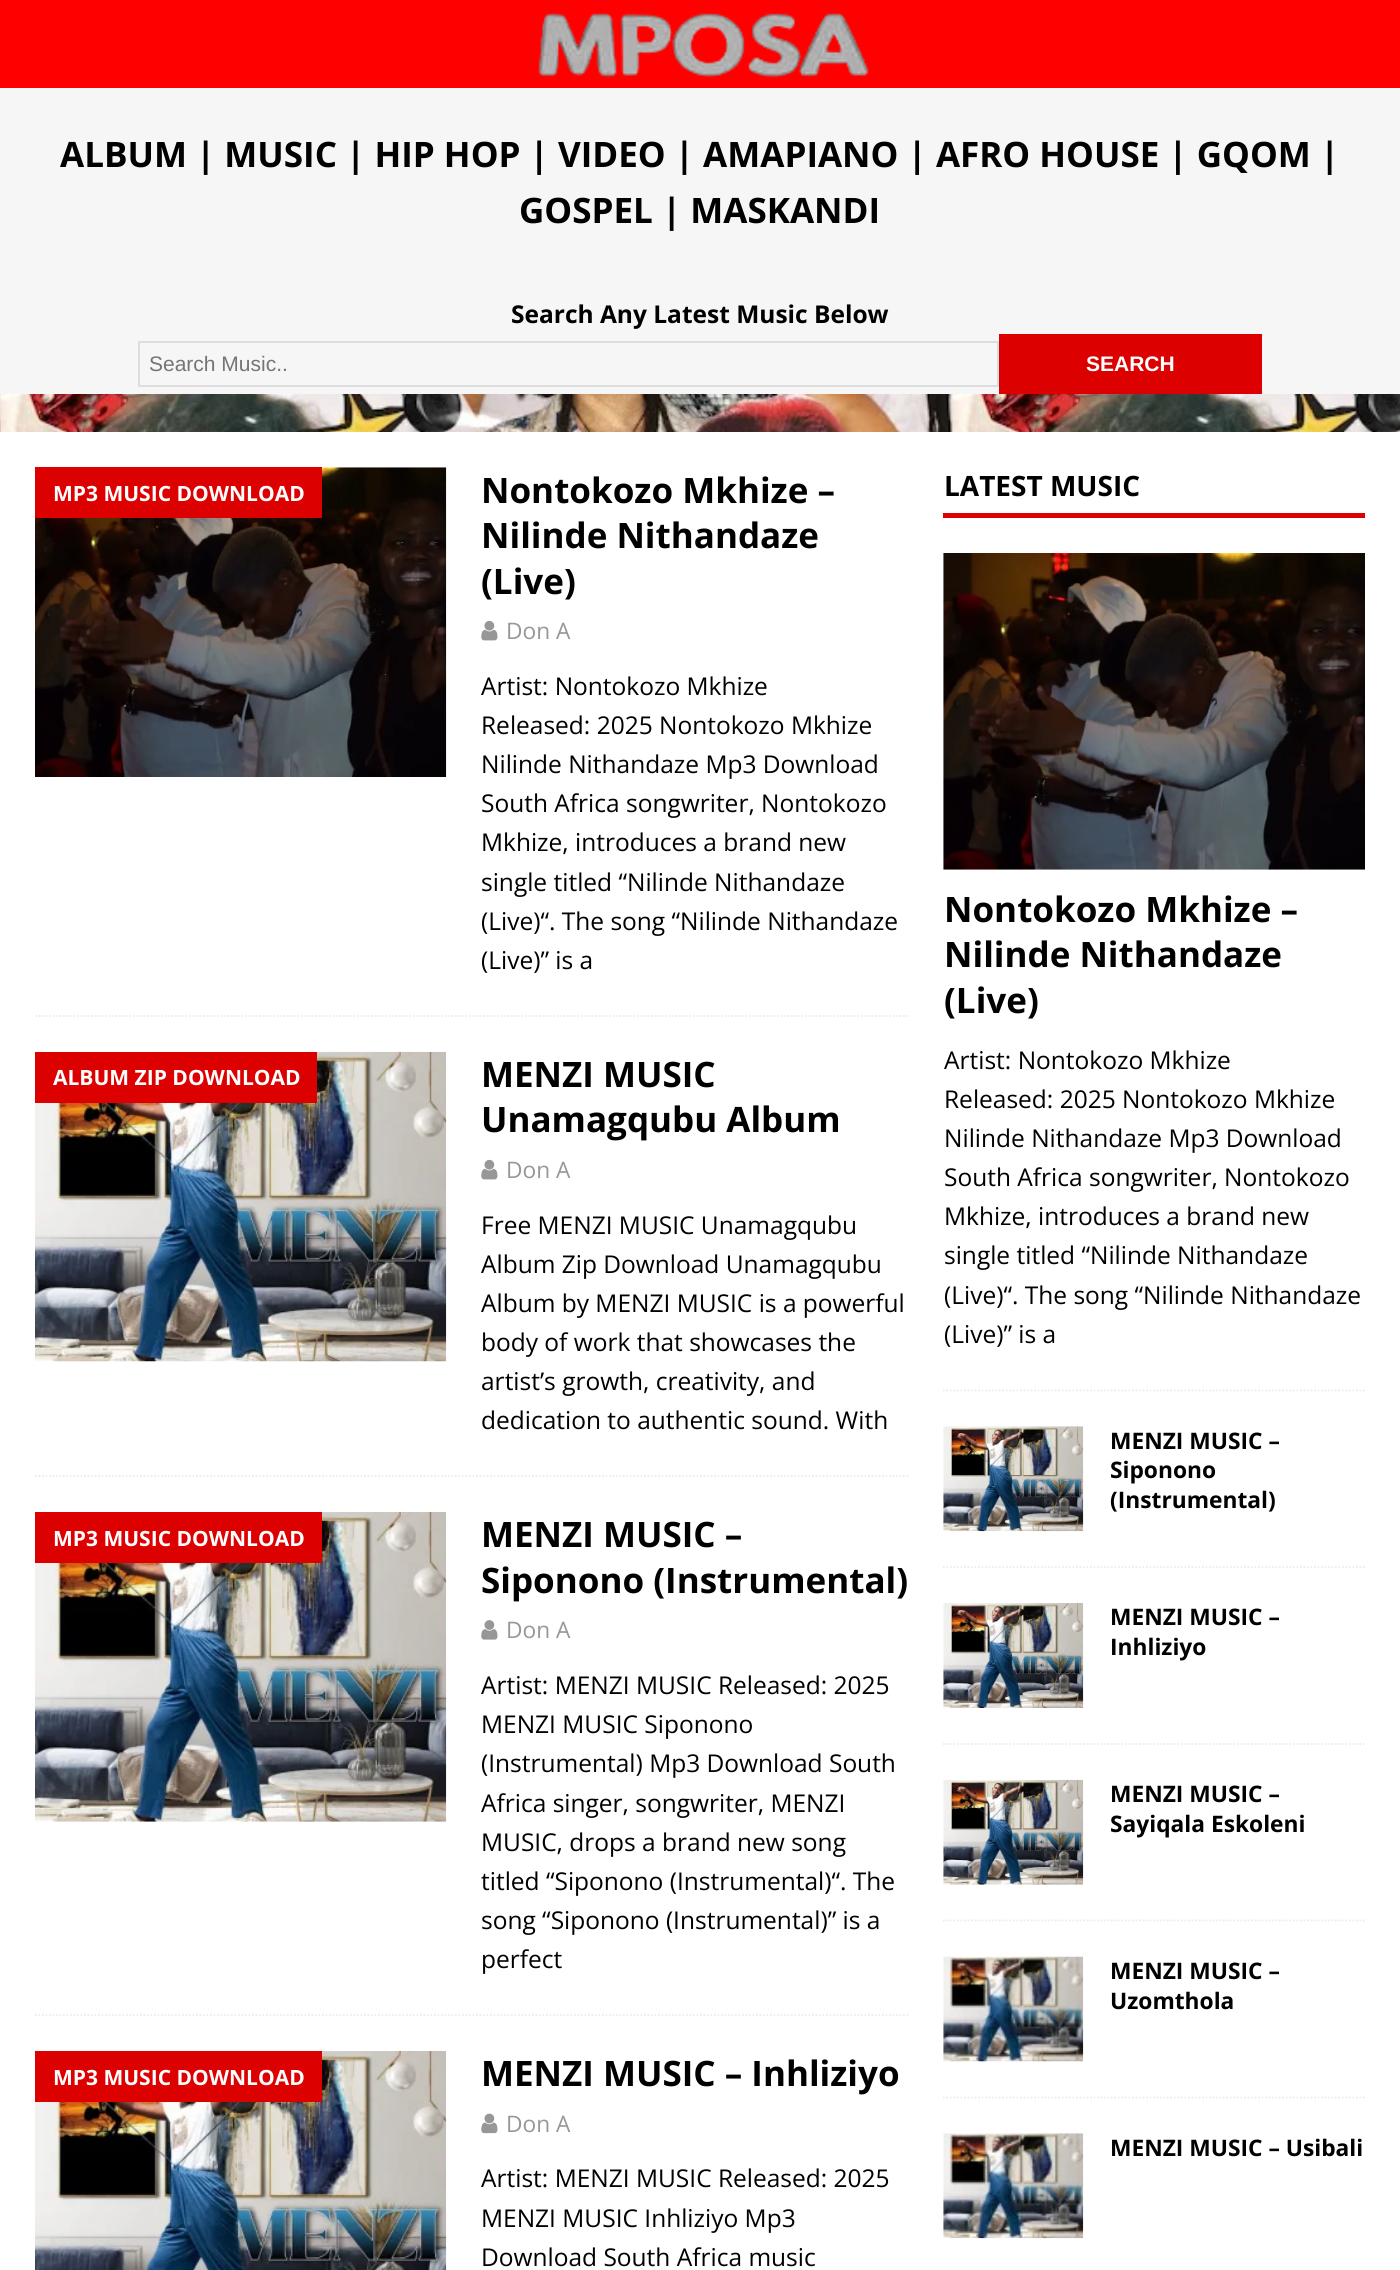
import math
import cairo


def paste(ctx, path, x, y, w, h):
	ctx.save()
	ctx.set_source_surface(cairo.ImageSurface.create_from_png(path), x, y)
	ctx.rectangle(x, y, w, h)
	ctx.fill()
	ctx.restore()

def draw(ctx):
	ctx.set_source_rgb(1, 1, 1)
	ctx.paint()
	paste(ctx, 'media/1.png', 0, 394, 1400, 38)
	ctx.set_source_rgb(0.961, 0.961, 0.961)
	ctx.rectangle(0, 88, 1400, 306)
	ctx.fill()
	ctx.set_source_rgb(1, 0, 0)
	ctx.rectangle(0, 0, 1400, 88)
	ctx.fill()
	paste(ctx, 'media/2.png', 538, 13, 331, 65)
	ctx.select_font_face('Open Sans', cairo.FONT_SLANT_NORMAL, cairo.FONT_WEIGHT_BOLD)
	ctx.set_font_size(35)
	ctx.set_source_rgb(0, 0, 0)
	ctx.move_to(60, 167)
	ctx.show_text('ALBUM | MUSIC | HIP HOP | VIDEO | AMAPIANO | AFRO HOUSE | GQOM |')
	ctx.move_to(519, 223)
	ctx.show_text('GOSPEL | MASKANDI')
	ctx.set_font_size(24.5)
	ctx.move_to(511, 323)
	ctx.show_text('Search Any Latest Music Below')
	ctx.rectangle(139, 342, 859, 44)
	ctx.set_source_rgb(0.867, 0.867, 0.867)
	ctx.stroke()
	ctx.select_font_face('Liberation Sans')
	ctx.set_font_size(21)
	ctx.set_source_rgb(0.459, 0.459, 0.459)
	ctx.move_to(149, 371)
	ctx.show_text('Search Music..')
	ctx.set_source_rgb(0.867, 0, 0)
	ctx.rectangle(999, 334, 263, 60)
	ctx.fill()
	ctx.select_font_face('Liberation Sans', cairo.FONT_SLANT_NORMAL, cairo.FONT_WEIGHT_BOLD)
	ctx.set_source_rgb(1, 1, 1)
	ctx.move_to(1086, 371)
	ctx.show_text('SEARCH')
	ctx.new_path()
	ctx.move_to(35, 1016)
	ctx.line_to(910, 1016)
	ctx.set_source_rgb(0.922, 0.922, 0.922)
	ctx.set_line_width(1.8)
	ctx.set_dash([1.75, 1.75])
	ctx.stroke()
	paste(ctx, 'media/3.png', 35, 467, 412, 310)
	ctx.set_source_rgb(0.867, 0, 0)
	ctx.rectangle(35, 467, 287, 51)
	ctx.fill()
	ctx.select_font_face('Open Sans', cairo.FONT_SLANT_NORMAL, cairo.FONT_WEIGHT_BOLD)
	ctx.set_source_rgb(1, 1, 1)
	ctx.move_to(53, 501)
	ctx.show_text('MP3 MUSIC DOWNLOAD')
	ctx.set_font_size(35)
	ctx.set_source_rgb(0, 0, 0)
	for x, y, s in [
		(481, 503, 'Nontokozo Mkhize –'),
		(481, 548, 'Nilinde Nithandaze'),
		(481, 594, '(Live)'),
	]:
		ctx.move_to(x, y)
		ctx.show_text(s)
	paste(ctx, 'media/4.png', 481, 620, 17, 21)
	ctx.select_font_face('Open Sans')
	ctx.set_font_size(22.75)
	ctx.set_source_rgb(0.592, 0.592, 0.592)
	ctx.move_to(506, 639)
	ctx.show_text('Don A')
	ctx.set_font_size(24.5)
	ctx.set_source_rgb(0, 0, 0)
	for x, y, s in [
		(481, 695, 'Artist: Nontokozo Mkhize'),
		(481, 734, 'Released: 2025 Nontokozo Mkhize'),
		(481, 773, 'Nilinde Nithandaze Mp3 Download'),
		(481, 812, 'South Africa songwriter, Nontokozo'),
		(481, 851, 'Mkhize, introduces a brand new'),
		(481, 891, 'single titled “Nilinde Nithandaze'),
		(481, 930, '(Live)“. The song “Nilinde Nithandaze'),
		(481, 969, '(Live)” is a'),
	]:
		ctx.move_to(x, y)
		ctx.show_text(s)
	ctx.new_path()
	ctx.move_to(35, 1476)
	ctx.line_to(910, 1476)
	ctx.set_source_rgb(0.922, 0.922, 0.922)
	ctx.stroke()
	paste(ctx, 'media/5.png', 35, 1051, 412, 311)
	ctx.set_source_rgb(0.867, 0, 0)
	ctx.rectangle(35, 1052, 282, 51)
	ctx.fill()
	ctx.select_font_face('Open Sans', cairo.FONT_SLANT_NORMAL, cairo.FONT_WEIGHT_BOLD)
	ctx.set_font_size(21)
	ctx.set_source_rgb(1, 1, 1)
	ctx.move_to(53, 1085)
	ctx.show_text('ALBUM ZIP DOWNLOAD')
	ctx.set_font_size(35)
	ctx.set_source_rgb(0, 0, 0)
	ctx.move_to(481, 1087)
	ctx.show_text('MENZI MUSIC')
	ctx.move_to(481, 1132)
	ctx.show_text('Unamagqubu Album')
	paste(ctx, 'media/4.png', 481, 1159, 17, 21)
	ctx.select_font_face('Open Sans')
	ctx.set_font_size(22.75)
	ctx.set_source_rgb(0.592, 0.592, 0.592)
	ctx.move_to(506, 1178)
	ctx.show_text('Don A')
	ctx.set_font_size(24.5)
	ctx.set_source_rgb(0, 0, 0)
	for x, y, s in [
		(481, 1234, 'Free MENZI MUSIC Unamagqubu'),
		(481, 1273, 'Album Zip Download Unamagqubu'),
		(481, 1312, 'Album by MENZI MUSIC is a powerful'),
		(481, 1351, 'body of work that showcases the'),
		(481, 1390, 'artist’s growth, creativity, and'),
		(481, 1429, 'dedication to authentic sound. With'),
	]:
		ctx.move_to(x, y)
		ctx.show_text(s)
	ctx.new_path()
	ctx.move_to(35, 2015)
	ctx.line_to(910, 2015)
	ctx.set_source_rgb(0.922, 0.922, 0.922)
	ctx.stroke()
	paste(ctx, 'media/6.png', 35, 1512, 412, 310)
	ctx.set_source_rgb(0.867, 0, 0)
	ctx.rectangle(35, 1512, 287, 51)
	ctx.fill()
	ctx.select_font_face('Open Sans', cairo.FONT_SLANT_NORMAL, cairo.FONT_WEIGHT_BOLD)
	ctx.set_font_size(21)
	ctx.set_source_rgb(1, 1, 1)
	ctx.move_to(53, 1546)
	ctx.show_text('MP3 MUSIC DOWNLOAD')
	ctx.set_font_size(35)
	ctx.set_source_rgb(0, 0, 0)
	ctx.move_to(481, 1547)
	ctx.show_text('MENZI MUSIC –')
	ctx.move_to(481, 1593)
	ctx.show_text('Siponono (Instrumental)')
	paste(ctx, 'media/7.png', 481, 1620, 17, 20)
	ctx.select_font_face('Open Sans')
	ctx.set_font_size(22.75)
	ctx.set_source_rgb(0.592, 0.592, 0.592)
	ctx.move_to(506, 1638)
	ctx.show_text('Don A')
	ctx.set_font_size(24.5)
	ctx.set_source_rgb(0, 0, 0)
	for x, y, s in [
		(481, 1694, 'Artist: MENZI MUSIC Released: 2025'),
		(481, 1733, 'MENZI MUSIC Siponono'),
		(481, 1772, '(Instrumental) Mp3 Download South'),
		(481, 1812, 'Africa singer, songwriter, MENZI'),
		(481, 1851, 'MUSIC, drops a brand new song'),
		(481, 1890, 'titled “Siponono (Instrumental)“. The'),
		(481, 1929, 'song “Siponono (Instrumental)” is a'),
		(481, 1968, 'perfect'),
	]:
		ctx.move_to(x, y)
		ctx.show_text(s)
	paste(ctx, 'media/8.png', 35, 2051, 412, 219)
	ctx.set_source_rgb(0.867, 0, 0)
	ctx.rectangle(35, 2051, 287, 51)
	ctx.fill()
	ctx.select_font_face('Open Sans', cairo.FONT_SLANT_NORMAL, cairo.FONT_WEIGHT_BOLD)
	ctx.set_font_size(21)
	ctx.set_source_rgb(1, 1, 1)
	ctx.move_to(53, 2085)
	ctx.show_text('MP3 MUSIC DOWNLOAD')
	ctx.set_font_size(35)
	ctx.set_source_rgb(0, 0, 0)
	ctx.move_to(481, 2086)
	ctx.show_text('MENZI MUSIC – Inhliziyo')
	paste(ctx, 'media/9.png', 481, 2113, 17, 21)
	ctx.select_font_face('Open Sans')
	ctx.set_font_size(22.75)
	ctx.set_source_rgb(0.592, 0.592, 0.592)
	ctx.move_to(506, 2132)
	ctx.show_text('Don A')
	ctx.set_font_size(24.5)
	ctx.set_source_rgb(0, 0, 0)
	for x, y, s in [
		(481, 2187, 'Artist: MENZI MUSIC Released: 2025'),
		(481, 2227, 'MENZI MUSIC Inhliziyo Mp3'),
		(481, 2266, 'Download South Africa music'),
	]:
		ctx.move_to(x, y)
		ctx.show_text(s)
	ctx.set_source_rgb(0.867, 0, 0)
	ctx.rectangle(943, 513, 422, 5)
	ctx.fill()
	ctx.select_font_face('Open Sans', cairo.FONT_SLANT_NORMAL, cairo.FONT_WEIGHT_BOLD)
	ctx.set_font_size(28)
	ctx.set_source_rgb(0, 0, 0)
	ctx.move_to(944, 496)
	ctx.show_text('LATEST MUSIC')
	ctx.new_path()
	ctx.move_to(943, 1390.5)
	ctx.line_to(1365, 1390.5)
	ctx.set_source_rgb(0.922, 0.922, 0.922)
	ctx.stroke()
	paste(ctx, 'media/10.png', 943, 553, 422, 317)
	ctx.set_font_size(35)
	ctx.set_source_rgb(0, 0, 0)
	for x, y, s in [
		(944, 922, 'Nontokozo Mkhize –'),
		(944, 967, 'Nilinde Nithandaze'),
		(944, 1013, '(Live)'),
	]:
		ctx.move_to(x, y)
		ctx.show_text(s)
	ctx.select_font_face('Open Sans')
	ctx.set_font_size(24.5)
	for x, y, s in [
		(944, 1069, 'Artist: Nontokozo Mkhize'),
		(944, 1108, 'Released: 2025 Nontokozo Mkhize'),
		(944, 1147, 'Nilinde Nithandaze Mp3 Download'),
		(944, 1186, 'South Africa songwriter, Nontokozo'),
		(944, 1225, 'Mkhize, introduces a brand new'),
		(944, 1264, 'single titled “Nilinde Nithandaze'),
		(944, 1304, '(Live)“. The song “Nilinde Nithandaze'),
		(944, 1343, '(Live)” is a'),
	]:
		ctx.move_to(x, y)
		ctx.show_text(s)
	ctx.new_path()
	ctx.move_to(943, 1567)
	ctx.line_to(1365, 1567)
	ctx.set_source_rgb(0.922, 0.922, 0.922)
	ctx.stroke()
	paste(ctx, 'media/11.png', 943, 1426, 141, 106)
	ctx.select_font_face('Open Sans', cairo.FONT_SLANT_NORMAL, cairo.FONT_WEIGHT_BOLD)
	ctx.set_font_size(22.75)
	ctx.set_source_rgb(0, 0, 0)
	for x, y, s in [
		(1110, 1449, 'MENZI MUSIC –'),
		(1110, 1478, 'Siponono'),
		(1110, 1508, '(Instrumental)'),
	]:
		ctx.move_to(x, y)
		ctx.show_text(s)
	ctx.new_path()
	ctx.move_to(943, 1744)
	ctx.line_to(1365, 1744)
	ctx.set_source_rgb(0.922, 0.922, 0.922)
	ctx.stroke()
	paste(ctx, 'media/12.png', 943, 1603, 141, 105)
	ctx.set_source_rgb(0, 0, 0)
	ctx.move_to(1110, 1625)
	ctx.show_text('MENZI MUSIC –')
	ctx.move_to(1110, 1655)
	ctx.show_text('Inhliziyo')
	ctx.new_path()
	ctx.move_to(943, 1920.5)
	ctx.line_to(1365, 1920.5)
	ctx.set_source_rgb(0.922, 0.922, 0.922)
	ctx.stroke()
	paste(ctx, 'media/13.png', 943, 1779, 141, 106)
	ctx.set_source_rgb(0, 0, 0)
	ctx.move_to(1110, 1802)
	ctx.show_text('MENZI MUSIC –')
	ctx.move_to(1110, 1832)
	ctx.show_text('Sayiqala Eskoleni')
	ctx.new_path()
	ctx.move_to(943, 2097.5)
	ctx.line_to(1365, 2097.5)
	ctx.set_source_rgb(0.922, 0.922, 0.922)
	ctx.stroke()
	paste(ctx, 'media/14.png', 943, 1956, 141, 106)
	ctx.set_source_rgb(0, 0, 0)
	ctx.move_to(1110, 1979)
	ctx.show_text('MENZI MUSIC –')
	ctx.move_to(1110, 2009)
	ctx.show_text('Uzomthola')
	paste(ctx, 'media/15.png', 943, 2133, 141, 106)
	ctx.move_to(1110, 2156)
	ctx.show_text('MENZI MUSIC – Usibali')


surface = cairo.ImageSurface(cairo.FORMAT_RGB24, 1400, 2270)
ctx = cairo.Context(surface)
options = cairo.FontOptions()
options.set_hint_metrics(cairo.HINT_METRICS_OFF)
options.set_hint_style(cairo.HINT_STYLE_NONE)
ctx.set_font_options(options)
ctx.set_miter_limit(4)
draw(ctx)
surface.write_to_png('image.png')
